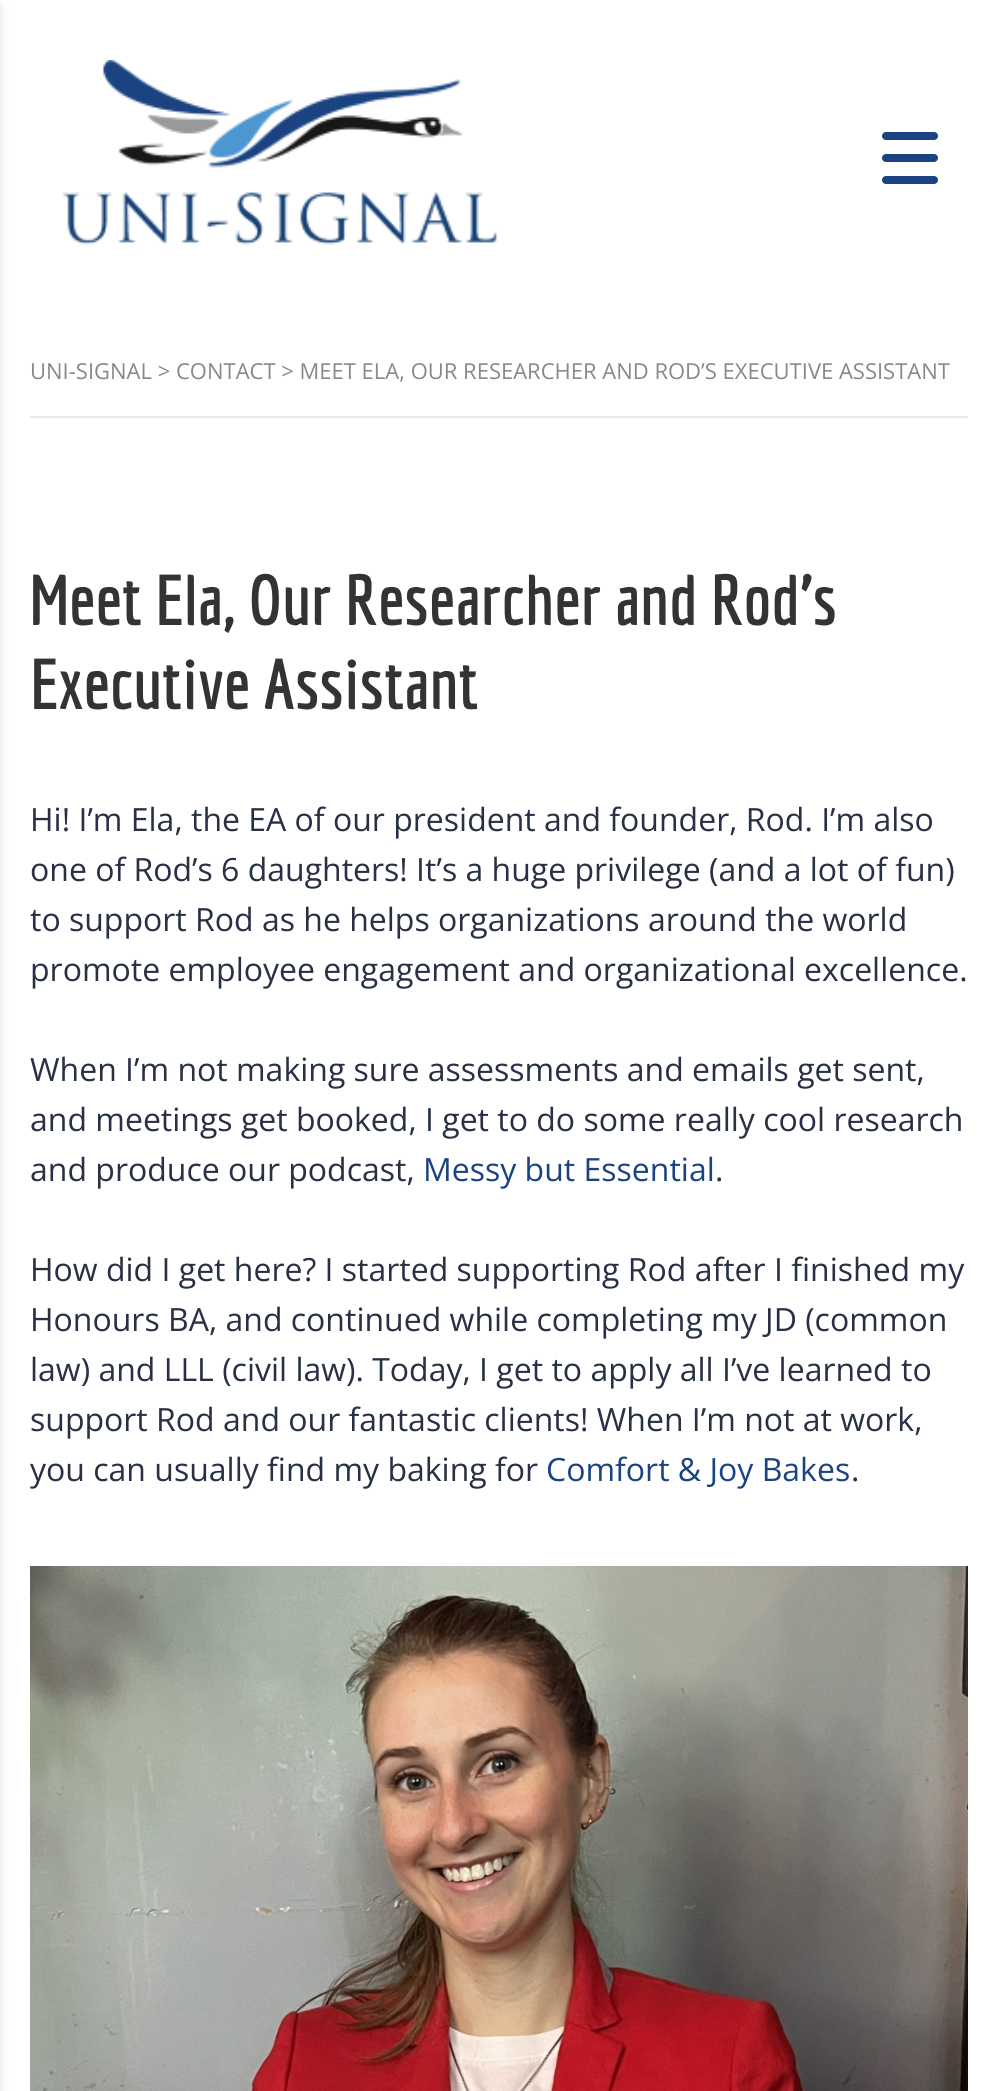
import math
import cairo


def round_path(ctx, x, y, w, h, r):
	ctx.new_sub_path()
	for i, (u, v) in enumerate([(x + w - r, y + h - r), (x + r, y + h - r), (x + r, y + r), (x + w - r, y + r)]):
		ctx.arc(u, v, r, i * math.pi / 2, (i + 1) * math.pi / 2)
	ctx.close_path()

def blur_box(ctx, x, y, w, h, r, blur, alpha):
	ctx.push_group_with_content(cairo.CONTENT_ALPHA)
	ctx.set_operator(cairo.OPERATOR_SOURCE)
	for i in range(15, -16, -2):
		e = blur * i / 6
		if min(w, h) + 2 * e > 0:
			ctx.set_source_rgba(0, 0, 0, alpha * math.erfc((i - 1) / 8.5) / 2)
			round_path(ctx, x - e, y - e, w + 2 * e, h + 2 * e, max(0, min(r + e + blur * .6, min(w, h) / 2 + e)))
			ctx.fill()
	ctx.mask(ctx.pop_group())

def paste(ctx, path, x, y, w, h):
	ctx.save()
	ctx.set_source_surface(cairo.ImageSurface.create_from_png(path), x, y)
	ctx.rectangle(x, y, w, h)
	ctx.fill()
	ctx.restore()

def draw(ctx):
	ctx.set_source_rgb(1, 1, 1)
	ctx.paint()
	ctx.set_source_rgb(0, 0, 0)
	blur_box(ctx, -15, 6, 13, 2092, 0, 5, 0.2)
	paste(ctx, 'media/1.png', 62, 60, 435, 185)
	ctx.set_source_rgb(0.106, 0.263, 0.51)
	round_path(ctx, 882, 132, 56, 8, 4)
	ctx.fill()
	round_path(ctx, 882, 154, 56, 8, 4)
	ctx.fill()
	round_path(ctx, 882, 176, 56, 8, 4)
	ctx.fill()
	ctx.set_source_rgb(0.898, 0.91, 0.925)
	ctx.rectangle(30, 416, 938, 2)
	ctx.fill()
	ctx.select_font_face('Open Sans')
	ctx.set_font_size(22)
	ctx.set_source_rgb(0.533, 0.533, 0.533)
	ctx.move_to(30, 379)
	ctx.show_text('UNI-SIGNAL > CONTACT > MEET ELA, OUR RESEARCHER AND ROD’S EXECUTIVE ASSISTANT')
	ctx.select_font_face('Economica', cairo.FONT_SLANT_NORMAL, cairo.FONT_WEIGHT_BOLD)
	ctx.set_font_size(70)
	ctx.set_source_rgb(0.2, 0.2, 0.2)
	ctx.move_to(30, 625)
	ctx.show_text('Meet Ela, Our Researcher and Rod’s')
	ctx.move_to(30, 709)
	ctx.show_text('Executive Assistant')
	ctx.select_font_face('Open Sans')
	ctx.set_font_size(32)
	ctx.set_source_rgb(0.153, 0.188, 0.267)
	for x, y, s in [
		(30, 831, 'Hi! I’m Ela, the EA of our president and founder, Rod. I’m also'),
		(30, 881, 'one of Rod’s 6 daughters! It’s a huge privilege (and a lot of fun)'),
		(30, 931, 'to support Rod as he helps organizations around the world'),
		(30, 981, 'promote employee engagement and organizational excellence.'),
		(30, 1081, 'When I’m not making sure assessments and emails get sent,'),
		(30, 1131, 'and meetings get booked, I get to do some really cool research'),
		(30, 1181, 'and produce our podcast,'),
	]:
		ctx.move_to(x, y)
		ctx.show_text(s)
	ctx.set_source_rgb(0.106, 0.263, 0.51)
	ctx.move_to(423, 1181)
	ctx.show_text('Messy but Essential')
	ctx.set_source_rgb(0.153, 0.188, 0.267)
	for x, y, s in [
		(715, 1181, '.'),
		(30, 1281, 'How did I get here? I started supporting Rod after I finished my'),
		(30, 1331, 'Honours BA, and continued while completing my JD (common'),
		(30, 1381, 'law) and LLL (civil law). Today, I get to apply all I’ve learned to'),
		(30, 1431, 'support Rod and our fantastic clients! When I’m not at work,'),
		(30, 1481, 'you can usually find my baking for'),
	]:
		ctx.move_to(x, y)
		ctx.show_text(s)
	ctx.set_source_rgb(0.106, 0.263, 0.51)
	ctx.move_to(546, 1481)
	ctx.show_text('Comfort & Joy Bakes')
	ctx.set_source_rgb(0.153, 0.188, 0.267)
	ctx.move_to(851, 1481)
	ctx.show_text('.')
	paste(ctx, 'media/2.png', 30, 1566, 938, 525)


surface = cairo.ImageSurface(cairo.FORMAT_RGB24, 997, 2091)
ctx = cairo.Context(surface)
options = cairo.FontOptions()
options.set_hint_metrics(cairo.HINT_METRICS_OFF)
options.set_hint_style(cairo.HINT_STYLE_NONE)
ctx.set_font_options(options)
ctx.set_miter_limit(4)
draw(ctx)
surface.write_to_png('image.png')
